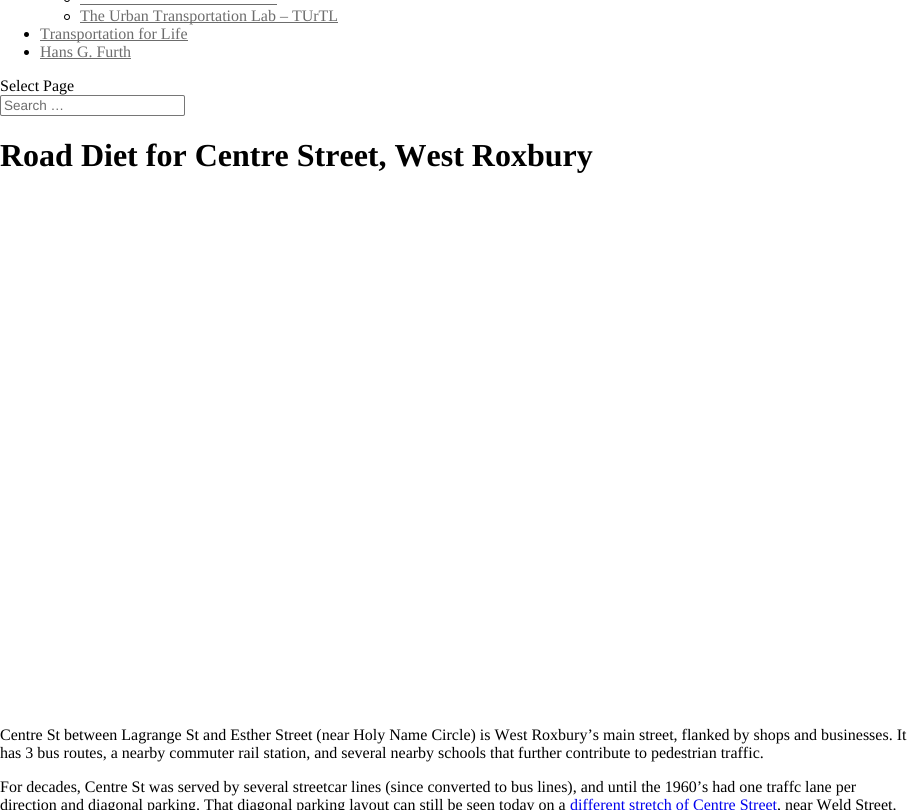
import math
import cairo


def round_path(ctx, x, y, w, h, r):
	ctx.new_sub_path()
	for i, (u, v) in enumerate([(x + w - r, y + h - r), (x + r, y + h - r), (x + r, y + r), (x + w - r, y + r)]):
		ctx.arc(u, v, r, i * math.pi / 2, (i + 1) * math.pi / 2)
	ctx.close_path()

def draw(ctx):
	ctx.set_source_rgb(1, 1, 1)
	ctx.paint()
	ctx.arc(67, -1, 2.5, 0, 2 * math.pi)
	ctx.set_source_rgb(0, 0, 0)
	ctx.set_line_width(1)
	ctx.stroke()
	ctx.set_source_rgb(0.424, 0.424, 0.424)
	ctx.rectangle(80, 4, 197, 1)
	ctx.fill()
	ctx.arc(67, 17, 2.5, 0, 2 * math.pi)
	ctx.set_source_rgb(0, 0, 0)
	ctx.stroke()
	ctx.set_source_rgb(0.424, 0.424, 0.424)
	ctx.rectangle(80, 22, 258, 1)
	ctx.fill()
	ctx.select_font_face('Liberation Serif')
	ctx.set_font_size(16)
	ctx.move_to(80, 21)
	ctx.show_text('The Urban Transportation Lab – TUrTL')
	ctx.set_source_rgb(0, 0, 0)
	ctx.new_path()
	ctx.arc(26.5, 34.5, 2.5, 0, 2 * math.pi)
	ctx.fill()
	ctx.set_source_rgb(0.424, 0.424, 0.424)
	ctx.rectangle(40, 40, 148, 1)
	ctx.fill()
	ctx.move_to(40, 39)
	ctx.show_text('Transportation for Life')
	ctx.set_source_rgb(0, 0, 0)
	ctx.new_path()
	ctx.arc(26.5, 52.5, 2.5, 0, 2 * math.pi)
	ctx.fill()
	ctx.set_source_rgb(0.424, 0.424, 0.424)
	ctx.move_to(40, 57)
	ctx.show_text('Hans G. Furth')
	ctx.rectangle(40, 58, 91, 1)
	ctx.fill()
	ctx.set_source_rgb(0, 0, 0)
	ctx.move_to(0, 91)
	ctx.show_text('Select Page')
	round_path(ctx, 0.5, 95.5, 184, 20, 1.5)
	ctx.set_source_rgb(0.463, 0.463, 0.463)
	ctx.stroke()
	ctx.select_font_face('Liberation Sans')
	ctx.set_font_size(13.5)
	ctx.set_source_rgb(0.424, 0.424, 0.424)
	ctx.move_to(4, 110)
	ctx.show_text('Search …')
	ctx.select_font_face('Liberation Serif', cairo.FONT_SLANT_NORMAL, cairo.FONT_WEIGHT_BOLD)
	ctx.set_font_size(32)
	ctx.set_source_rgb(0, 0, 0)
	ctx.move_to(0, 166)
	ctx.show_text('Road Diet for Centre Street, West Roxbury')
	ctx.select_font_face('Liberation Serif')
	ctx.set_font_size(16)
	for x, y, s in [
		(0, 740, 'Centre St between Lagrange St and Esther Street (near Holy Name Circle) is West Roxbury’s main street, flanked by shops and businesses. It'),
		(0, 758, 'has 3 bus routes, a nearby commuter rail station, and several nearby schools that further contribute to pedestrian traffic.'),
		(0, 792, 'For decades, Centre St was served by several streetcar lines (since converted to bus lines), and until the 1960’s had one traffc lane per'),
		(0, 810, 'direction and diagonal parking. That diagonal parking layout can still be seen today on a'),
	]:
		ctx.move_to(x, y)
		ctx.show_text(s)
	ctx.set_source_rgb(0, 0, 0.933)
	ctx.move_to(570, 810)
	ctx.show_text('different stretch of Centre Street')
	ctx.set_source_rgb(0, 0, 0)
	ctx.move_to(777, 810)
	ctx.show_text(', near Weld Street.')


surface = cairo.ImageSurface(cairo.FORMAT_RGB24, 908, 810)
ctx = cairo.Context(surface)
options = cairo.FontOptions()
options.set_hint_metrics(cairo.HINT_METRICS_OFF)
options.set_hint_style(cairo.HINT_STYLE_NONE)
ctx.set_font_options(options)
ctx.set_miter_limit(4)
draw(ctx)
surface.write_to_png('image.png')
